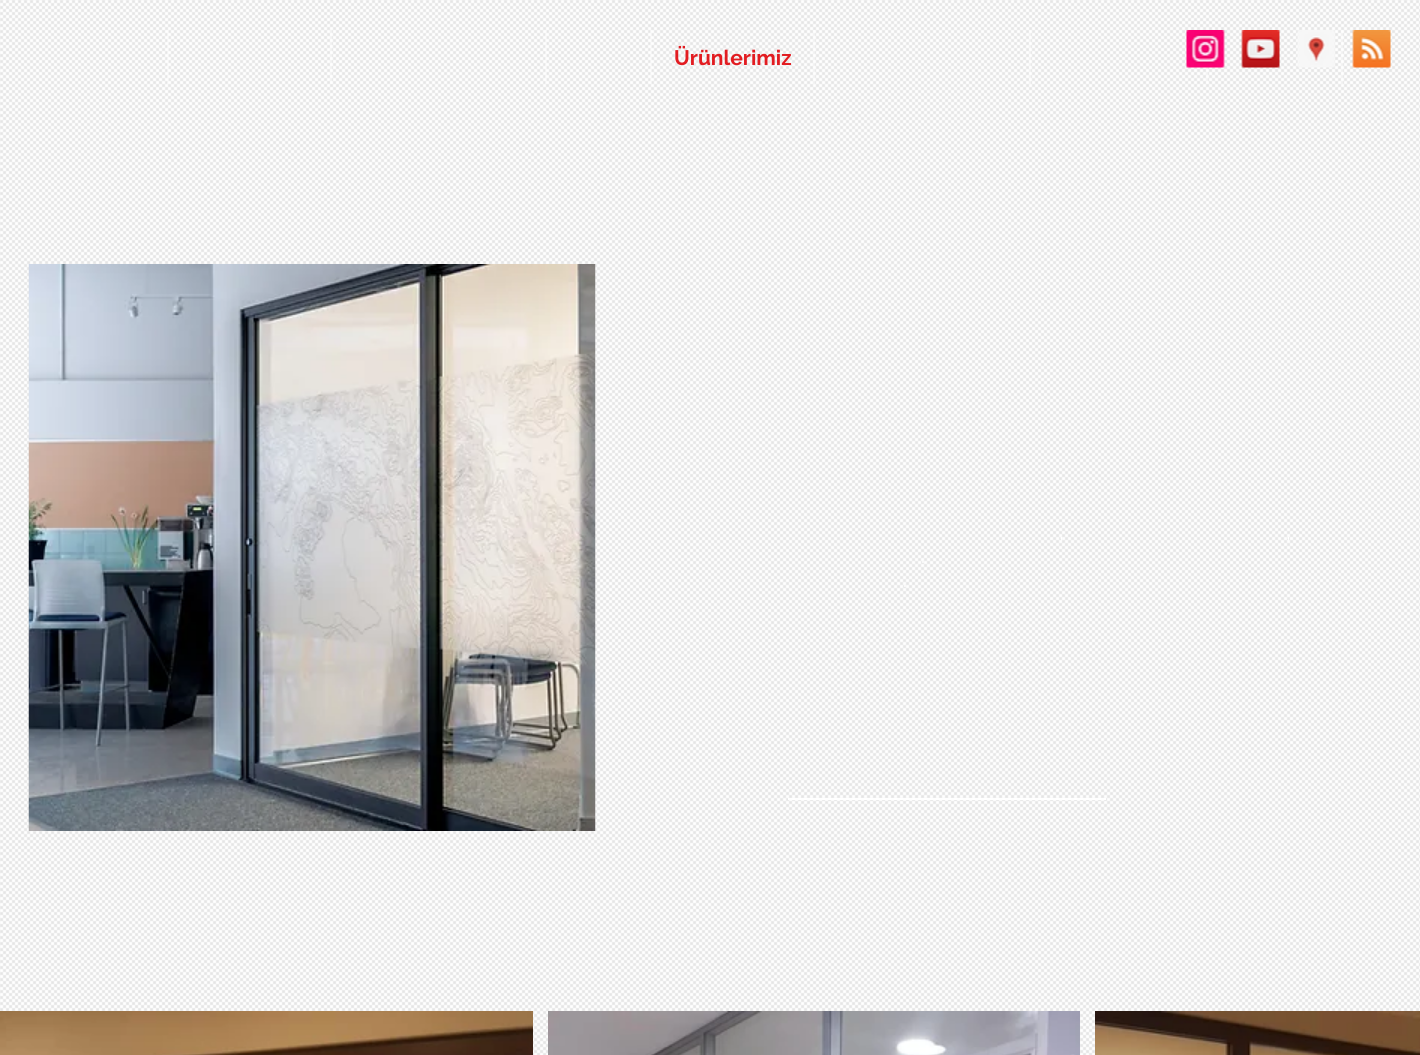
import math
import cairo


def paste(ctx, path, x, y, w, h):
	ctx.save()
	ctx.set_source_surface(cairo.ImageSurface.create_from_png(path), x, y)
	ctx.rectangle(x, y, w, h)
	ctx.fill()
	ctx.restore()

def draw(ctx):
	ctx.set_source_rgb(1, 1, 1)
	ctx.paint()
	paste(ctx, 'media/1.png', 0, 0, 1420, 1055)
	ctx.set_source_rgba(1, 1, 1, 0.39)
	ctx.rectangle(167, 30, 2, 54)
	ctx.fill()
	ctx.rectangle(330, 30, 2, 54)
	ctx.fill()
	ctx.rectangle(545, 30, 2, 54)
	ctx.fill()
	ctx.rectangle(650, 30, 2, 54)
	ctx.fill()
	ctx.select_font_face('Raleway', cairo.FONT_SLANT_NORMAL, cairo.FONT_WEIGHT_BOLD)
	ctx.set_font_size(21)
	ctx.set_source_rgb(0.886, 0.11, 0.129)
	ctx.move_to(674, 65)
	ctx.show_text('Ürünlerimiz')
	ctx.set_source_rgba(1, 1, 1, 0.39)
	ctx.rectangle(813, 30, 2, 54)
	ctx.fill()
	ctx.rectangle(1029, 30, 2, 54)
	ctx.fill()
	ctx.rectangle(1341, 30, 2, 54)
	ctx.fill()
	ctx.rectangle(1206, 67, 2, 17)
	ctx.fill()
	paste(ctx, 'media/2.png', 1186, 30, 39, 38)
	paste(ctx, 'media/3.png', 1241, 30, 39, 38)
	paste(ctx, 'media/4.png', 1297, 30, 38, 38)
	paste(ctx, 'media/5.png', 1352, 30, 39, 38)
	paste(ctx, 'media/6.png', 28, 264, 568, 567)
	ctx.select_font_face('Raleway')
	ctx.set_source_rgb(1, 1, 1)
	for x, y, s in [
		(1059, 539, ','),
		(1286, 539, ','),
		(921, 563, '.'),
		(903, 587, '.'),
	]:
		ctx.move_to(x, y)
		ctx.show_text(s)
	ctx.rectangle(788, 798, 318, 2)
	ctx.fill()
	paste(ctx, 'media/7.png', 0, 1011, 533, 44)
	paste(ctx, 'media/8.png', 548, 1011, 532, 44)
	paste(ctx, 'media/9.png', 1095, 1011, 325, 44)


surface = cairo.ImageSurface(cairo.FORMAT_RGB24, 1420, 1055)
ctx = cairo.Context(surface)
options = cairo.FontOptions()
options.set_hint_metrics(cairo.HINT_METRICS_OFF)
options.set_hint_style(cairo.HINT_STYLE_NONE)
ctx.set_font_options(options)
ctx.set_miter_limit(4)
draw(ctx)
surface.write_to_png('image.png')
